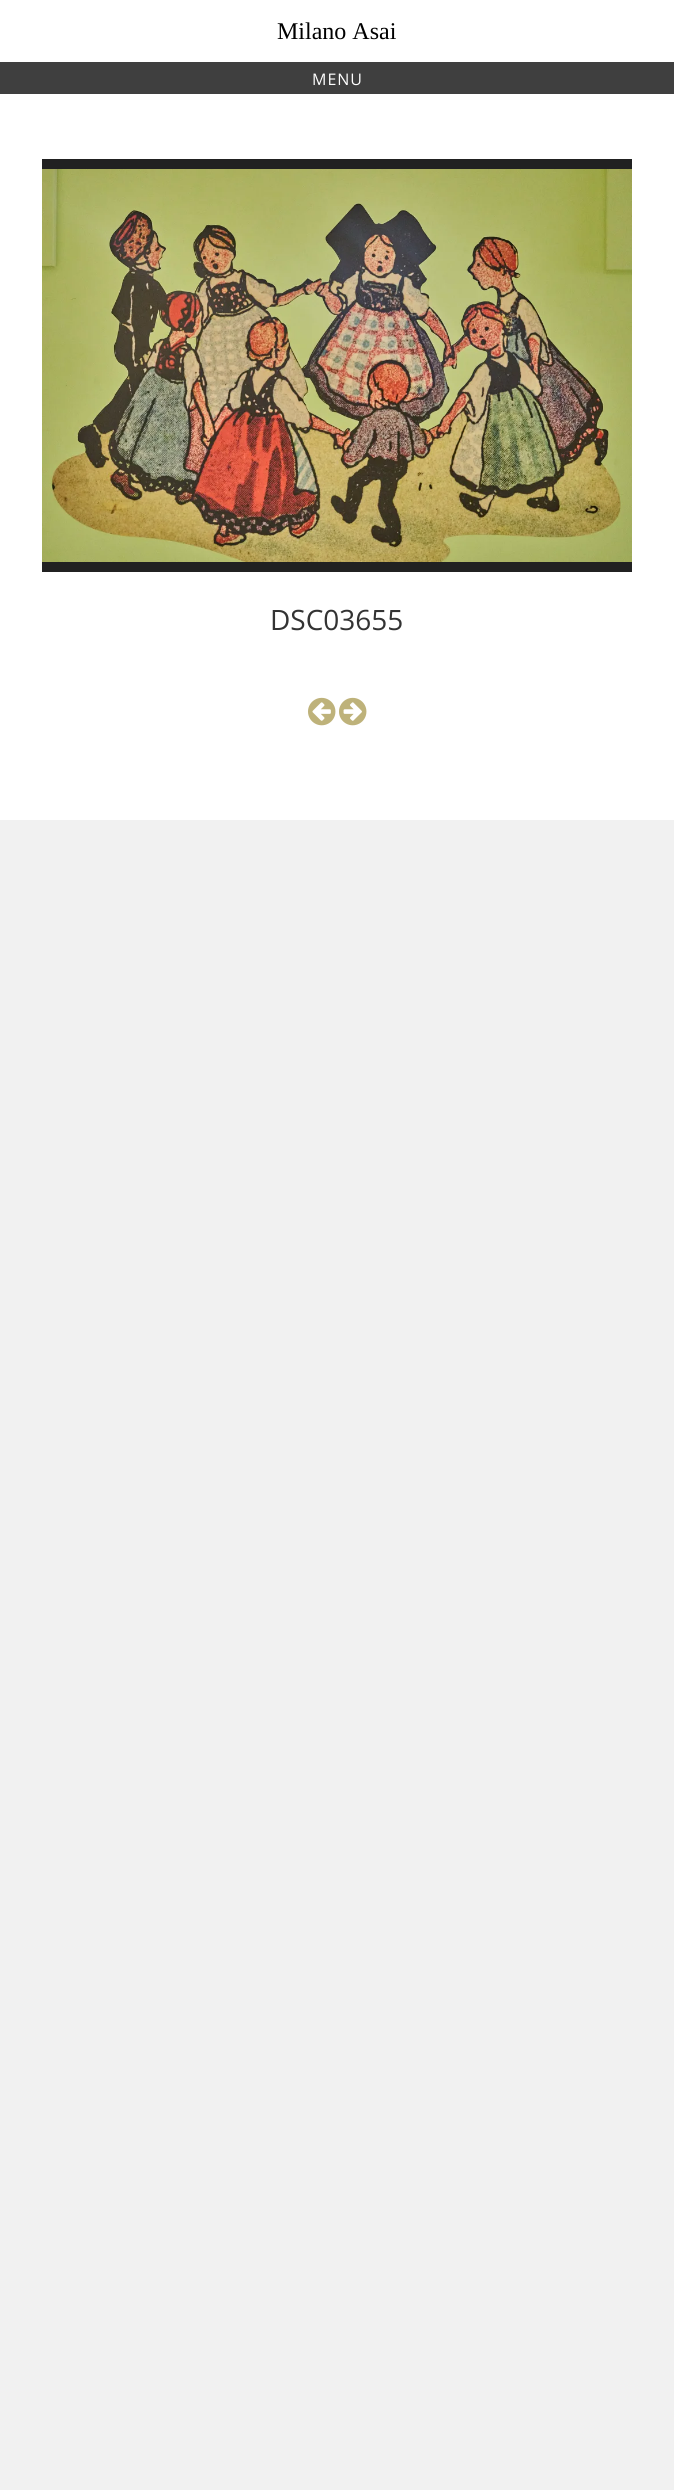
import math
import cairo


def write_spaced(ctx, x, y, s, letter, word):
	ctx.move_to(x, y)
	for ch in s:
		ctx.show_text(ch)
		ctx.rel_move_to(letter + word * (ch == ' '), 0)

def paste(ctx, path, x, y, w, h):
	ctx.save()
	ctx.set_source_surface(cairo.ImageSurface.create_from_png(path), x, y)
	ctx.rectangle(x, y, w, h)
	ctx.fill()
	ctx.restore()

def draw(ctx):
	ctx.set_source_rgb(0.945, 0.945, 0.945)
	ctx.paint()
	ctx.set_source_rgb(1, 1, 1)
	ctx.rectangle(0, 0, 674, 62)
	ctx.fill()
	ctx.select_font_face('Liberation Serif')
	ctx.set_font_size(24)
	ctx.set_source_rgb(0, 0, 0)
	ctx.move_to(277, 39)
	ctx.show_text('Milano Asai')
	ctx.set_source_rgb(0.247, 0.247, 0.247)
	ctx.rectangle(0, 62, 674, 32)
	ctx.fill()
	ctx.select_font_face('Open Sans')
	ctx.set_font_size(16)
	ctx.set_source_rgb(1, 1, 1)
	write_spaced(ctx, 312, 85, 'MENU', 1, 0)
	ctx.rectangle(0, 94, 674, 726)
	ctx.fill()
	ctx.set_source_rgb(0.129, 0.129, 0.129)
	ctx.rectangle(42, 159, 590, 413)
	ctx.fill()
	paste(ctx, 'media/1.png', 42, 169, 590, 393)
	ctx.set_font_size(28)
	ctx.set_source_rgb(0.2, 0.2, 0.2)
	ctx.move_to(270, 630)
	ctx.show_text('DSC03655')
	paste(ctx, 'media/2.png', 308, 697, 28, 29)
	paste(ctx, 'media/3.png', 339, 697, 28, 29)


surface = cairo.ImageSurface(cairo.FORMAT_RGB24, 674, 2490)
ctx = cairo.Context(surface)
options = cairo.FontOptions()
options.set_hint_metrics(cairo.HINT_METRICS_OFF)
options.set_hint_style(cairo.HINT_STYLE_NONE)
ctx.set_font_options(options)
ctx.set_miter_limit(4)
draw(ctx)
surface.write_to_png('image.png')
